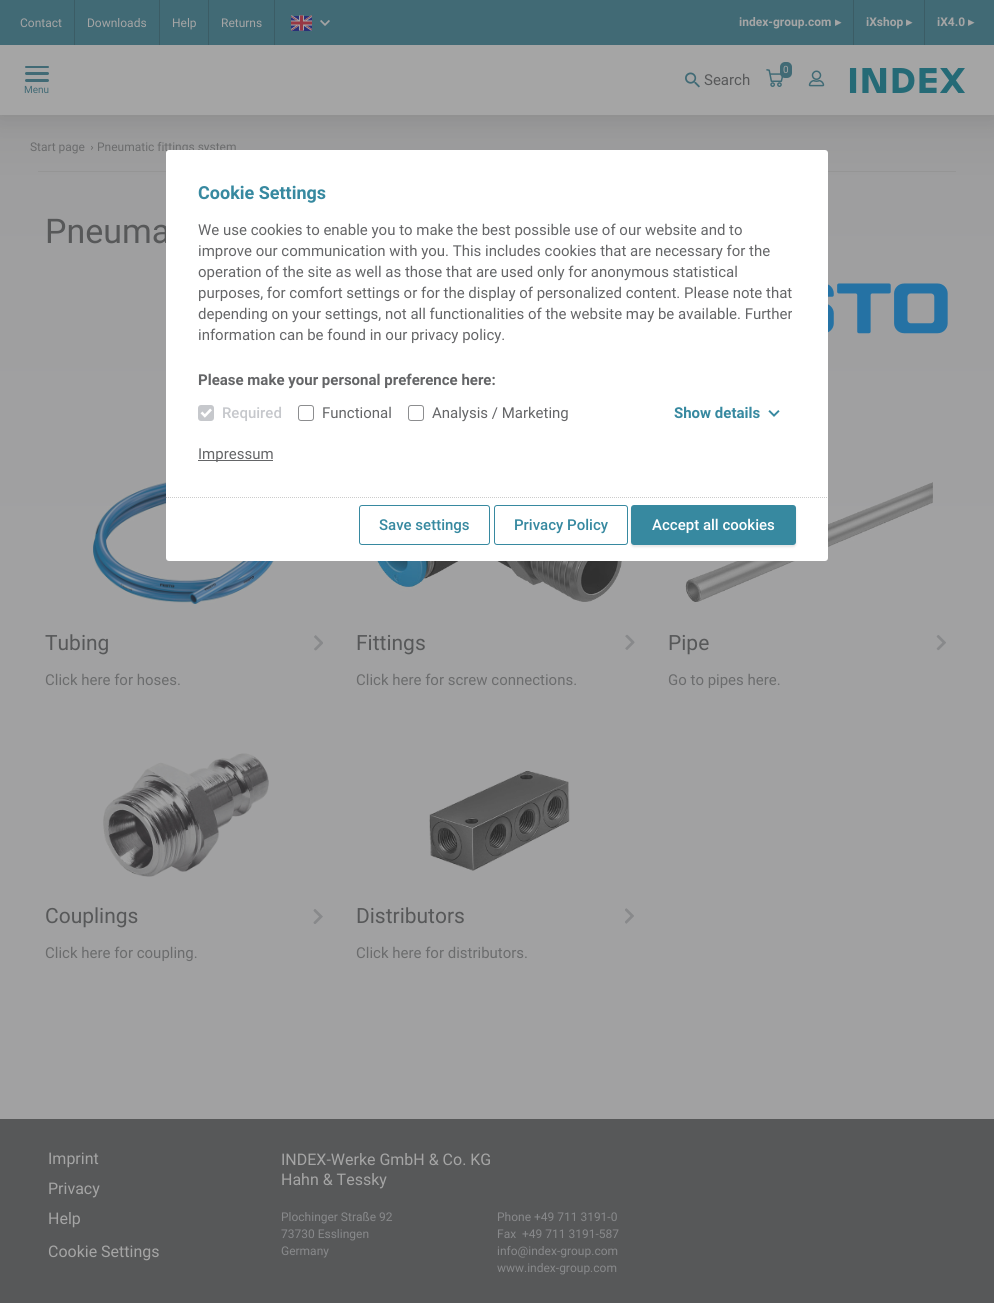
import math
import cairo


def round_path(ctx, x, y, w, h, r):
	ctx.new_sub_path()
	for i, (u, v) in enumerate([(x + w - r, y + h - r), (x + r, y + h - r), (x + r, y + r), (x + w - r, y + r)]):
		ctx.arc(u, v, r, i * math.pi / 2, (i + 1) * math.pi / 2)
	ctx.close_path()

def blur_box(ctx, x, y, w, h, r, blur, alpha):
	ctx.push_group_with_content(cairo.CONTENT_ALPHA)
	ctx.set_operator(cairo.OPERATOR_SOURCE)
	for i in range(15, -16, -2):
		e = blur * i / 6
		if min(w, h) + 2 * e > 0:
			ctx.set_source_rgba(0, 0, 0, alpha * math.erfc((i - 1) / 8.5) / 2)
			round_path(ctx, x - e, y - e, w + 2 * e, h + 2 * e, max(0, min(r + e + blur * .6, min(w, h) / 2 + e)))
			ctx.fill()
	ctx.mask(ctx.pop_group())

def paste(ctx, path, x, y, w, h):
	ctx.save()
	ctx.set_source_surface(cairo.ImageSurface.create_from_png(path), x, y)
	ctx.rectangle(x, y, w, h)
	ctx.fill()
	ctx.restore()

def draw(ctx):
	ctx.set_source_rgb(1, 1, 1)
	ctx.paint()
	gradient = cairo.LinearGradient(497, 0, 497, 1303)
	gradient.add_color_stop_rgba(0, 0.561, 0.561, 0.561, 1)
	gradient.add_color_stop_rgba(0.14, 0.62, 0.62, 0.624, 1)
	gradient.add_color_stop_rgba(0.43, 0.631, 0.631, 0.635, 1)
	gradient.add_color_stop_rgba(1, 0.631, 0.631, 0.635, 1)
	ctx.set_source(gradient)
	ctx.rectangle(0, 115, 994, 1004)
	ctx.fill()
	paste(ctx, 'media/7.png', 91, 145, 3, 5)
	ctx.set_source_rgb(0.145, 0.145, 0.145)
	blur_box(ctx, 0, 0, 994, 115, 0, 12.5, 0.15)
	ctx.set_source_rgb(0.647, 0.647, 0.647)
	ctx.rectangle(0, 45, 994, 70)
	ctx.fill()
	ctx.set_source_rgb(0.255, 0.416, 0.459)
	ctx.rectangle(0, 0, 994, 45)
	ctx.fill()
	ctx.set_source_rgb(0.231, 0.361, 0.396)
	ctx.rectangle(74, 0, 1, 45)
	ctx.fill()
	ctx.select_font_face('Roboto')
	ctx.set_font_size(12)
	ctx.set_source_rgb(0.647, 0.647, 0.647)
	ctx.move_to(20, 27)
	ctx.show_text('Contact')
	ctx.set_source_rgb(0.231, 0.361, 0.396)
	ctx.rectangle(159, 0, 1, 45)
	ctx.fill()
	ctx.set_source_rgb(0.647, 0.647, 0.647)
	ctx.move_to(87, 27)
	ctx.show_text('Downloads')
	ctx.set_source_rgb(0.231, 0.361, 0.396)
	ctx.rectangle(208, 0, 1, 45)
	ctx.fill()
	ctx.set_source_rgb(0.647, 0.647, 0.647)
	ctx.move_to(172, 27)
	ctx.show_text('Help')
	ctx.set_source_rgb(0.231, 0.361, 0.396)
	ctx.rectangle(274, 0, 1, 45)
	ctx.fill()
	ctx.set_source_rgb(0.647, 0.647, 0.647)
	ctx.move_to(221, 27)
	ctx.show_text('Returns')
	paste(ctx, 'media/1.png', 291, 15, 21, 16)
	paste(ctx, 'media/2.png', 320, 20, 10, 6)
	ctx.set_source_rgb(0.231, 0.361, 0.396)
	ctx.rectangle(853, 0, 1, 45)
	ctx.fill()
	ctx.select_font_face('Roboto', cairo.FONT_SLANT_NORMAL, cairo.FONT_WEIGHT_BOLD)
	ctx.set_source_rgb(0.647, 0.647, 0.647)
	ctx.move_to(739, 26)
	ctx.show_text('index-group.com')
	ctx.select_font_face('DejaVu Sans', cairo.FONT_SLANT_NORMAL, cairo.FONT_WEIGHT_BOLD)
	ctx.move_to(835, 26)
	ctx.show_text('▸')
	ctx.set_source_rgb(0.231, 0.361, 0.396)
	ctx.rectangle(924, 0, 1, 45)
	ctx.fill()
	ctx.select_font_face('Roboto', cairo.FONT_SLANT_NORMAL, cairo.FONT_WEIGHT_BOLD)
	ctx.set_source_rgb(0.647, 0.647, 0.647)
	ctx.move_to(866, 26)
	ctx.show_text('iXshop')
	ctx.select_font_face('DejaVu Sans', cairo.FONT_SLANT_NORMAL, cairo.FONT_WEIGHT_BOLD)
	ctx.move_to(906, 26)
	ctx.show_text('▸')
	ctx.select_font_face('Roboto', cairo.FONT_SLANT_NORMAL, cairo.FONT_WEIGHT_BOLD)
	ctx.move_to(937, 26)
	ctx.show_text('iX4.0')
	ctx.select_font_face('DejaVu Sans', cairo.FONT_SLANT_NORMAL, cairo.FONT_WEIGHT_BOLD)
	ctx.move_to(968, 26)
	ctx.show_text('▸')
	paste(ctx, 'media/3.png', 685, 72, 15, 16)
	ctx.select_font_face('Roboto')
	ctx.set_font_size(15)
	ctx.set_source_rgb(0.341, 0.345, 0.349)
	ctx.move_to(704, 85)
	ctx.show_text('Search')
	ctx.set_source_rgb(0.255, 0.416, 0.459)
	round_path(ctx, 780, 62, 12, 16, 5)
	ctx.fill()
	paste(ctx, 'media/4.png', 766, 69, 17, 18)
	ctx.set_font_size(10)
	ctx.set_source_rgb(0.647, 0.647, 0.647)
	ctx.move_to(783, 73)
	ctx.show_text('0')
	paste(ctx, 'media/5.png', 808, 70, 17, 17)
	paste(ctx, 'media/6.png', 849, 68, 116, 25)
	ctx.set_source_rgb(0.255, 0.416, 0.459)
	round_path(ctx, 25, 66, 24, 2, 1)
	ctx.fill()
	round_path(ctx, 25, 72, 24, 3, 1.5)
	ctx.fill()
	round_path(ctx, 25, 79, 24, 3, 1.5)
	ctx.fill()
	ctx.move_to(24, 93)
	ctx.show_text('Menu')
	ctx.set_font_size(12)
	ctx.set_source_rgb(0.42, 0.424, 0.427)
	ctx.move_to(30, 151)
	ctx.show_text('Start page')
	ctx.move_to(97, 151)
	ctx.show_text('Pneumatic fittings system')
	ctx.set_source_rgb(0.584, 0.584, 0.584)
	ctx.rectangle(38, 171, 918, 1)
	ctx.fill()
	ctx.set_font_size(34)
	ctx.set_source_rgb(0.341, 0.345, 0.349)
	ctx.move_to(45, 243)
	ctx.show_text('Pneuma')
	paste(ctx, 'media/8.png', 828, 283, 120, 51)
	paste(ctx, 'media/9.png', 93, 482, 183, 122)
	ctx.set_font_size(21)
	ctx.move_to(45, 650)
	ctx.show_text('Tubing')
	paste(ctx, 'media/10.png', 314, 635, 9, 16)
	ctx.set_font_size(15)
	ctx.set_source_rgb(0.42, 0.424, 0.427)
	ctx.move_to(45, 685)
	ctx.show_text('Click here for hoses.')
	paste(ctx, 'media/11.png', 377, 561, 245, 41)
	ctx.set_font_size(21)
	ctx.set_source_rgb(0.341, 0.345, 0.349)
	ctx.move_to(356, 650)
	ctx.show_text('Fittings')
	paste(ctx, 'media/12.png', 625, 634, 10, 16)
	ctx.set_font_size(15)
	ctx.set_source_rgb(0.42, 0.424, 0.427)
	ctx.move_to(356, 685)
	ctx.show_text('Click here for screw connections.')
	paste(ctx, 'media/13.png', 685, 482, 248, 120)
	ctx.set_font_size(21)
	ctx.set_source_rgb(0.341, 0.345, 0.349)
	ctx.move_to(668, 650)
	ctx.show_text('Pipe')
	paste(ctx, 'media/14.png', 936, 635, 10, 16)
	ctx.set_font_size(15)
	ctx.set_source_rgb(0.42, 0.424, 0.427)
	ctx.move_to(668, 685)
	ctx.show_text('Go to pipes here.')
	paste(ctx, 'media/15.png', 103, 753, 166, 124)
	ctx.set_font_size(21)
	ctx.set_source_rgb(0.341, 0.345, 0.349)
	ctx.move_to(45, 923)
	ctx.show_text('Couplings')
	paste(ctx, 'media/16.png', 313, 909, 10, 15)
	ctx.set_font_size(15)
	ctx.set_source_rgb(0.42, 0.424, 0.427)
	ctx.move_to(45, 958)
	ctx.show_text('Click here for coupling.')
	paste(ctx, 'media/17.png', 429, 770, 141, 101)
	ctx.set_font_size(21)
	ctx.set_source_rgb(0.341, 0.345, 0.349)
	ctx.move_to(356, 923)
	ctx.show_text('Distributors')
	paste(ctx, 'media/18.png', 625, 908, 9, 16)
	ctx.set_font_size(15)
	ctx.set_source_rgb(0.42, 0.424, 0.427)
	ctx.move_to(356, 958)
	ctx.show_text('Click here for distributors.')
	ctx.set_source_rgb(0.341, 0.345, 0.349)
	ctx.rectangle(0, 1119, 994, 184)
	ctx.fill()
	ctx.set_font_size(16)
	ctx.set_source_rgb(0.647, 0.647, 0.647)
	for x, y, s in [
		(48, 1164, 'Imprint'),
		(48, 1194, 'Privacy'),
		(48, 1224, 'Help'),
		(48, 1257, 'Cookie Settings'),
		(281, 1165, 'INDEX-Werke GmbH & Co. KG'),
		(281, 1185, 'Hahn & Tessky'),
	]:
		ctx.move_to(x, y)
		ctx.show_text(s)
	ctx.set_font_size(12)
	ctx.set_source_rgb(0.533, 0.537, 0.545)
	for x, y, s in [
		(281, 1221, 'Plochinger Straße 92'),
		(281, 1238, '73730 Esslingen'),
		(281, 1255, 'Germany'),
		(497, 1221, 'Phone +49 711 3191-0'),
		(497, 1238, 'Fax'),
		(522, 1238, '+49 711 3191-587'),
		(497, 1255, 'info@index-group.com'),
		(497, 1272, 'www.index-group.com'),
	]:
		ctx.move_to(x, y)
		ctx.show_text(s)
	ctx.set_source_rgb(1, 1, 1)
	round_path(ctx, 166, 150, 662, 411, 3)
	ctx.fill()
	ctx.new_path()
	ctx.move_to(166, 497.5)
	ctx.line_to(828, 497.5)
	ctx.set_source_rgb(0.8, 0.8, 0.8)
	ctx.set_line_width(1)
	ctx.set_dash([1, 1])
	ctx.stroke()
	ctx.select_font_face('Roboto', cairo.FONT_SLANT_NORMAL, cairo.FONT_WEIGHT_BOLD)
	ctx.set_font_size(18)
	ctx.set_source_rgb(0.216, 0.537, 0.627)
	ctx.move_to(198, 199)
	ctx.show_text('Cookie Settings')
	ctx.select_font_face('Roboto')
	ctx.set_font_size(15)
	ctx.set_source_rgb(0.392, 0.396, 0.404)
	for x, y, s in [
		(198, 235, 'We use cookies to enable you to make the best possible use of our website and to'),
		(198, 256, 'improve our communication with you. This includes cookies that are necessary for the'),
		(198, 277, 'operation of the site as well as those that are used only for anonymous statistical'),
		(198, 298, 'purposes, for comfort settings or for the display of personalized content. Please note that'),
		(198, 319, 'depending on your settings, not all functionalities of the website may be available. Further'),
		(198, 340, 'information can be found in our privacy policy.'),
	]:
		ctx.move_to(x, y)
		ctx.show_text(s)
	ctx.select_font_face('Roboto', cairo.FONT_SLANT_NORMAL, cairo.FONT_WEIGHT_BOLD)
	ctx.move_to(198, 385)
	ctx.show_text('Please make your personal preference here:')
	paste(ctx, 'media/19.png', 198, 405, 16, 16)
	ctx.select_font_face('Roboto Medium')
	ctx.set_source_rgb(0.776, 0.784, 0.8)
	ctx.move_to(222, 418)
	ctx.show_text('Required')
	paste(ctx, 'media/20.png', 298, 405, 16, 16)
	ctx.select_font_face('Roboto')
	ctx.set_source_rgb(0.392, 0.396, 0.404)
	ctx.move_to(322, 418)
	ctx.show_text('Functional')
	paste(ctx, 'media/20.png', 408, 405, 16, 16)
	ctx.move_to(432, 418)
	ctx.show_text('Analysis / Marketing')
	ctx.select_font_face('Roboto', cairo.FONT_SLANT_NORMAL, cairo.FONT_WEIGHT_BOLD)
	ctx.set_source_rgb(0.216, 0.537, 0.627)
	ctx.move_to(674, 418)
	ctx.show_text('Show details')
	paste(ctx, 'media/21.png', 768, 410, 12, 7)
	ctx.set_source_rgb(0.392, 0.396, 0.404)
	ctx.rectangle(198, 460, 75, 1)
	ctx.fill()
	ctx.select_font_face('Roboto')
	ctx.move_to(198, 459)
	ctx.show_text('Impressum')
	round_path(ctx, 359.5, 505.5, 130, 39, 2.5)
	ctx.set_source_rgb(0.216, 0.537, 0.627)
	ctx.set_dash([])
	ctx.stroke()
	ctx.select_font_face('Roboto Medium')
	ctx.move_to(379, 530)
	ctx.show_text('Save settings')
	round_path(ctx, 494.5, 505.5, 133, 39, 2.5)
	ctx.stroke()
	ctx.move_to(514, 530)
	ctx.show_text('Privacy Policy')
	ctx.set_source_rgb(0, 0, 0)
	blur_box(ctx, 631, 507, 165, 40, 3, 1, 0.1)
	ctx.set_source_rgb(0.216, 0.537, 0.627)
	round_path(ctx, 631, 505, 165, 40, 3)
	ctx.fill()
	ctx.set_source_rgb(1, 1, 1)
	ctx.move_to(652, 530)
	ctx.show_text('Accept all cookies')


surface = cairo.ImageSurface(cairo.FORMAT_RGB24, 994, 1303)
ctx = cairo.Context(surface)
options = cairo.FontOptions()
options.set_hint_metrics(cairo.HINT_METRICS_OFF)
options.set_hint_style(cairo.HINT_STYLE_NONE)
ctx.set_font_options(options)
ctx.set_miter_limit(4)
draw(ctx)
surface.write_to_png('image.png')
